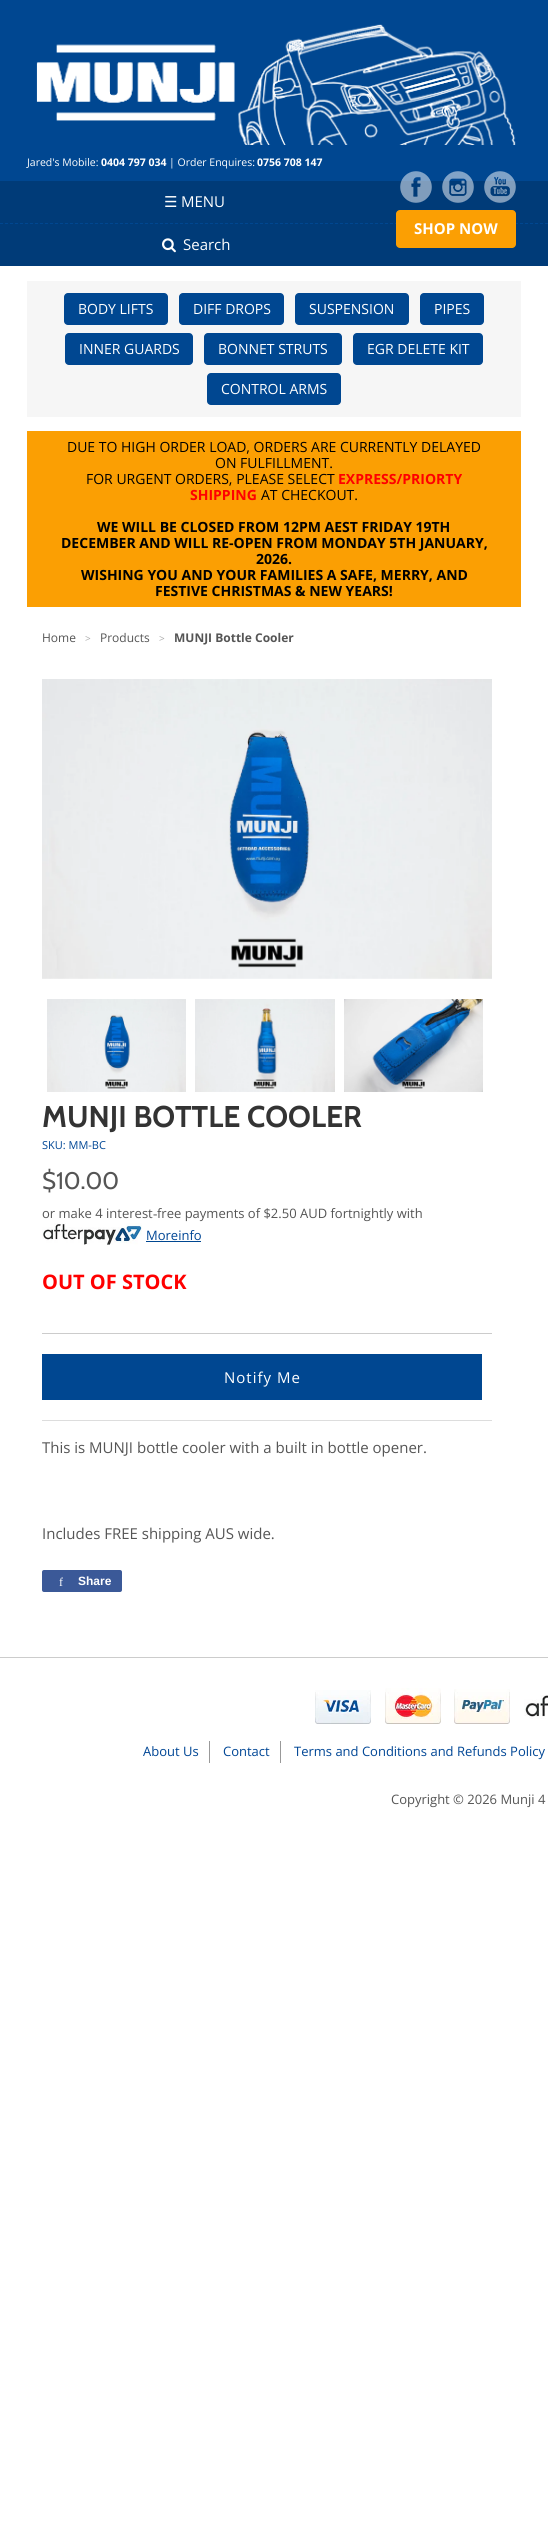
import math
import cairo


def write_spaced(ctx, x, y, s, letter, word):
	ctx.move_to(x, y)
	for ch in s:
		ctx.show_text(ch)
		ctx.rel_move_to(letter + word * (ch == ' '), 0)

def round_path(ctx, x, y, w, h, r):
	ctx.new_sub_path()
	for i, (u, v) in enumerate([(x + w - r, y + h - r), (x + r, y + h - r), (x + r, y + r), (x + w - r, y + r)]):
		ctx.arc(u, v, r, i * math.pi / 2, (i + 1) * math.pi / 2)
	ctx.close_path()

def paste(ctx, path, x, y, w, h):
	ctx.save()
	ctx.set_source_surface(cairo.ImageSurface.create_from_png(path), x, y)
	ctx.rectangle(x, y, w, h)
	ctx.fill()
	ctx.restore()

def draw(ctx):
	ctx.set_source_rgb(1, 1, 1)
	ctx.paint()
	ctx.set_source_rgb(0, 0.278, 0.569)
	ctx.rectangle(0, 0, 548, 181)
	ctx.fill()
	paste(ctx, 'media/1.png', 36, 24, 480, 121)
	ctx.select_font_face('Open Sans')
	ctx.set_font_size(10.5)
	ctx.set_source_rgb(1, 1, 1)
	ctx.move_to(27, 166)
	ctx.show_text('Jared\'s Mobile:')
	ctx.select_font_face('Open Sans', cairo.FONT_SLANT_NORMAL, cairo.FONT_WEIGHT_BOLD)
	ctx.move_to(101, 166)
	ctx.show_text('0404 797 034')
	ctx.select_font_face('Open Sans')
	ctx.move_to(169, 166)
	ctx.show_text('| Order Enquires:')
	ctx.select_font_face('Open Sans', cairo.FONT_SLANT_NORMAL, cairo.FONT_WEIGHT_BOLD)
	ctx.move_to(257, 166)
	ctx.show_text('0756 708 147')
	ctx.set_source_rgb(0, 0.231, 0.471)
	ctx.rectangle(0, 181, 548, 85)
	ctx.fill()
	paste(ctx, 'media/2.png', 400, 171, 32, 32)
	paste(ctx, 'media/3.png', 442, 171, 32, 32)
	paste(ctx, 'media/4.png', 484, 171, 32, 32)
	ctx.new_path()
	ctx.move_to(0, 223.5)
	ctx.line_to(548, 223.5)
	ctx.set_source_rgb(0, 0.278, 0.569)
	ctx.set_line_width(1)
	ctx.set_dash([3, 2])
	ctx.stroke()
	ctx.set_source_rgb(0.984, 0.624, 0.012)
	round_path(ctx, 396, 210, 120, 38, 4)
	ctx.fill()
	ctx.set_font_size(15)
	ctx.set_source_rgb(1, 1, 1)
	ctx.move_to(414, 234)
	ctx.show_text('SHOP NOW')
	ctx.select_font_face('DejaVu Sans')
	ctx.move_to(164, 207)
	ctx.show_text('☰')
	ctx.select_font_face('Open Sans')
	ctx.move_to(181, 207)
	ctx.show_text('MENU')
	paste(ctx, 'media/5.png', 162, 238, 14, 15)
	ctx.move_to(183, 250)
	ctx.show_text('Search')
	ctx.set_source_rgb(0.961, 0.961, 0.961)
	ctx.rectangle(27, 281, 494, 136)
	ctx.fill()
	ctx.set_source_rgb(0, 0.278, 0.569)
	round_path(ctx, 64, 293, 104, 32, 4)
	ctx.fill()
	ctx.set_font_size(14)
	ctx.set_source_rgb(1, 1, 1)
	ctx.move_to(78, 314)
	ctx.show_text('BODY LIFTS')
	ctx.set_source_rgb(0, 0.278, 0.569)
	round_path(ctx, 179, 293, 105, 32, 4)
	ctx.fill()
	ctx.set_source_rgb(1, 1, 1)
	ctx.move_to(193, 314)
	ctx.show_text('DIFF DROPS')
	ctx.set_source_rgb(0, 0.278, 0.569)
	round_path(ctx, 295, 293, 114, 32, 4)
	ctx.fill()
	ctx.set_source_rgb(1, 1, 1)
	ctx.move_to(309, 314)
	ctx.show_text('SUSPENSION')
	ctx.set_source_rgb(0, 0.278, 0.569)
	round_path(ctx, 420, 293, 64, 32, 4)
	ctx.fill()
	ctx.set_source_rgb(1, 1, 1)
	ctx.move_to(434, 314)
	ctx.show_text('PIPES')
	ctx.set_source_rgb(0, 0.278, 0.569)
	round_path(ctx, 65, 333, 128, 32, 4)
	ctx.fill()
	ctx.set_source_rgb(1, 1, 1)
	ctx.move_to(79, 354)
	ctx.show_text('INNER GUARDS')
	ctx.set_source_rgb(0, 0.278, 0.569)
	round_path(ctx, 204, 333, 138, 32, 4)
	ctx.fill()
	ctx.set_source_rgb(1, 1, 1)
	ctx.move_to(218, 354)
	ctx.show_text('BONNET STRUTS')
	ctx.set_source_rgb(0, 0.278, 0.569)
	round_path(ctx, 353, 333, 130, 32, 4)
	ctx.fill()
	ctx.set_source_rgb(1, 1, 1)
	ctx.move_to(367, 354)
	ctx.show_text('EGR DELETE KIT')
	ctx.set_source_rgb(0, 0.278, 0.569)
	round_path(ctx, 207, 373, 134, 32, 4)
	ctx.fill()
	ctx.set_source_rgb(1, 1, 1)
	ctx.move_to(221, 394)
	ctx.show_text('CONTROL ARMS')
	ctx.set_source_rgb(0.984, 0.624, 0.012)
	ctx.rectangle(27, 431, 494, 176)
	ctx.fill()
	ctx.set_source_rgb(0, 0, 0)
	for x, y, s in [
		(67, 452, 'DUE TO HIGH ORDER LOAD, ORDERS ARE CURRENTLY DELAYED'),
		(215, 468, 'ON FULFILLMENT.'),
		(86, 484, 'FOR URGENT ORDERS, PLEASE SELECT'),
	]:
		ctx.move_to(x, y)
		ctx.show_text(s)
	ctx.select_font_face('Open Sans', cairo.FONT_SLANT_NORMAL, cairo.FONT_WEIGHT_BOLD)
	ctx.set_source_rgb(1, 0, 0)
	ctx.move_to(338, 484)
	ctx.show_text('EXPRESS/PRIORTY')
	ctx.move_to(190, 500)
	ctx.show_text('SHIPPING')
	ctx.select_font_face('Open Sans')
	ctx.set_source_rgb(0, 0, 0)
	ctx.move_to(261, 500)
	ctx.show_text('AT CHECKOUT.')
	ctx.select_font_face('Open Sans', cairo.FONT_SLANT_NORMAL, cairo.FONT_WEIGHT_BOLD)
	for x, y, s in [
		(97, 532, 'WE WILL BE CLOSED FROM 12PM AEST FRIDAY 19TH'),
		(61, 548, 'DECEMBER AND WILL RE-OPEN FROM MONDAY 5TH JANUARY,'),
		(256, 564, '2026.'),
		(81, 580, 'WISHING YOU AND YOUR FAMILIES A SAFE, MERRY, AND'),
		(155, 596, 'FESTIVE CHRISTMAS & NEW YEARS!'),
	]:
		ctx.move_to(x, y)
		ctx.show_text(s)
	ctx.select_font_face('Open Sans')
	ctx.set_font_size(12)
	ctx.set_source_rgb(0.333, 0.333, 0.333)
	ctx.move_to(42, 642)
	ctx.show_text('Home')
	ctx.set_font_size(10)
	ctx.set_source_rgb(0.667, 0.667, 0.667)
	ctx.move_to(85, 642)
	ctx.show_text('>')
	ctx.set_font_size(12)
	ctx.set_source_rgb(0.333, 0.333, 0.333)
	ctx.move_to(100, 642)
	ctx.show_text('Products')
	ctx.set_font_size(10)
	ctx.set_source_rgb(0.667, 0.667, 0.667)
	ctx.move_to(159, 642)
	ctx.show_text('>')
	ctx.select_font_face('Open Sans', cairo.FONT_SLANT_NORMAL, cairo.FONT_WEIGHT_BOLD)
	ctx.set_font_size(12)
	ctx.set_source_rgb(0.333, 0.333, 0.333)
	ctx.move_to(174, 642)
	ctx.show_text('MUNJI Bottle Cooler')
	paste(ctx, 'media/6.png', 42, 679, 450, 300)
	paste(ctx, 'media/7.png', 47, 999, 139, 93)
	paste(ctx, 'media/8.png', 195, 999, 140, 93)
	paste(ctx, 'media/9.png', 344, 999, 139, 93)
	ctx.select_font_face('Cabin', cairo.FONT_SLANT_NORMAL, cairo.FONT_WEIGHT_BOLD)
	ctx.set_font_size(30)
	ctx.set_source_rgb(0.2, 0.2, 0.2)
	ctx.move_to(42, 1127)
	ctx.show_text('MUNJI BOTTLE COOLER')
	ctx.select_font_face('Open Sans')
	ctx.set_font_size(11)
	ctx.set_source_rgb(0, 0.275, 0.584)
	ctx.move_to(42, 1149)
	ctx.show_text('SKU: MM-BC')
	ctx.select_font_face('Cabin')
	ctx.set_font_size(24)
	ctx.set_source_rgb(0.333, 0.333, 0.333)
	ctx.move_to(42, 1189)
	ctx.show_text('$10.00')
	ctx.select_font_face('Open Sans')
	ctx.set_font_size(13)
	ctx.move_to(42, 1218)
	ctx.show_text('or make 4 interest')
	ctx.select_font_face('Liberation Serif')
	ctx.move_to(153, 1218)
	ctx.show_text('‐')
	ctx.select_font_face('Open Sans')
	ctx.move_to(157, 1218)
	ctx.show_text('free payments of $2.50 AUD fortnightly with')
	paste(ctx, 'media/10.png', 42, 1223, 100, 22)
	ctx.set_source_rgb(0, 0.275, 0.584)
	ctx.move_to(146, 1240)
	ctx.show_text('Moreinfo')
	ctx.set_source_rgb(0, 0.278, 0.569)
	ctx.rectangle(146, 1241, 55, 1)
	ctx.fill()
	ctx.set_source_rgb(0.867, 0.867, 0.867)
	ctx.rectangle(42, 1420, 450, 1)
	ctx.fill()
	ctx.set_source_rgb(0.8, 0.8, 0.8)
	ctx.rectangle(42, 1333, 450, 1)
	ctx.fill()
	ctx.select_font_face('Open Sans', cairo.FONT_SLANT_NORMAL, cairo.FONT_WEIGHT_BOLD)
	ctx.set_font_size(20)
	ctx.set_source_rgb(1, 0, 0)
	ctx.move_to(42, 1289)
	ctx.show_text('OUT OF STOCK')
	ctx.set_source_rgb(0, 0.278, 0.569)
	ctx.rectangle(42, 1354, 440, 46)
	ctx.fill()
	ctx.select_font_face('Open Sans')
	ctx.set_font_size(15)
	ctx.set_source_rgb(1, 1, 1)
	write_spaced(ctx, 224, 1383, 'Notify Me', 1, 0)
	ctx.set_source_rgb(0.333, 0.333, 0.333)
	ctx.move_to(42, 1453)
	ctx.show_text('This is MUNJI bottle cooler with a built in bottle opener.')
	ctx.move_to(42, 1539)
	ctx.show_text('Includes FREE shipping AUS wide.')
	ctx.set_source_rgb(0.231, 0.349, 0.596)
	round_path(ctx, 42, 1570, 80, 22, 2)
	ctx.fill()
	ctx.select_font_face('Liberation Serif')
	ctx.set_font_size(12)
	ctx.set_source_rgb(1, 1, 1)
	ctx.move_to(59, 1586)
	ctx.show_text('f')
	ctx.select_font_face('Liberation Sans', cairo.FONT_SLANT_NORMAL, cairo.FONT_WEIGHT_BOLD)
	ctx.move_to(78, 1585)
	ctx.show_text('Share')
	ctx.set_source_rgb(0.8, 0.8, 0.8)
	ctx.rectangle(0, 1657, 548, 1)
	ctx.fill()
	paste(ctx, 'media/11.png', 315, 1690, 56, 34)
	paste(ctx, 'media/12.png', 385, 1688, 56, 36)
	paste(ctx, 'media/13.png', 454, 1689, 56, 35)
	paste(ctx, 'media/14.png', 524, 1695, 24, 24)
	ctx.set_source_rgb(0.6, 0.6, 0.6)
	ctx.rectangle(209, 1741, 1, 22)
	ctx.fill()
	ctx.select_font_face('Open Sans')
	ctx.set_font_size(13)
	ctx.set_source_rgb(0, 0.275, 0.584)
	ctx.move_to(143, 1756)
	ctx.show_text('About Us')
	ctx.set_source_rgb(0.6, 0.6, 0.6)
	ctx.rectangle(280, 1741, 1, 22)
	ctx.fill()
	ctx.set_source_rgb(0, 0.275, 0.584)
	ctx.move_to(223, 1756)
	ctx.show_text('Contact')
	ctx.move_to(294, 1756)
	ctx.show_text('Terms and Conditions and Refunds Policy')
	ctx.set_source_rgb(0.333, 0.333, 0.333)
	ctx.move_to(391, 1804)
	ctx.show_text('Copyright © 2026 Munji 4')


surface = cairo.ImageSurface(cairo.FORMAT_RGB24, 548, 2539)
ctx = cairo.Context(surface)
options = cairo.FontOptions()
options.set_hint_metrics(cairo.HINT_METRICS_OFF)
options.set_hint_style(cairo.HINT_STYLE_NONE)
ctx.set_font_options(options)
ctx.set_miter_limit(4)
draw(ctx)
surface.write_to_png('image.png')
